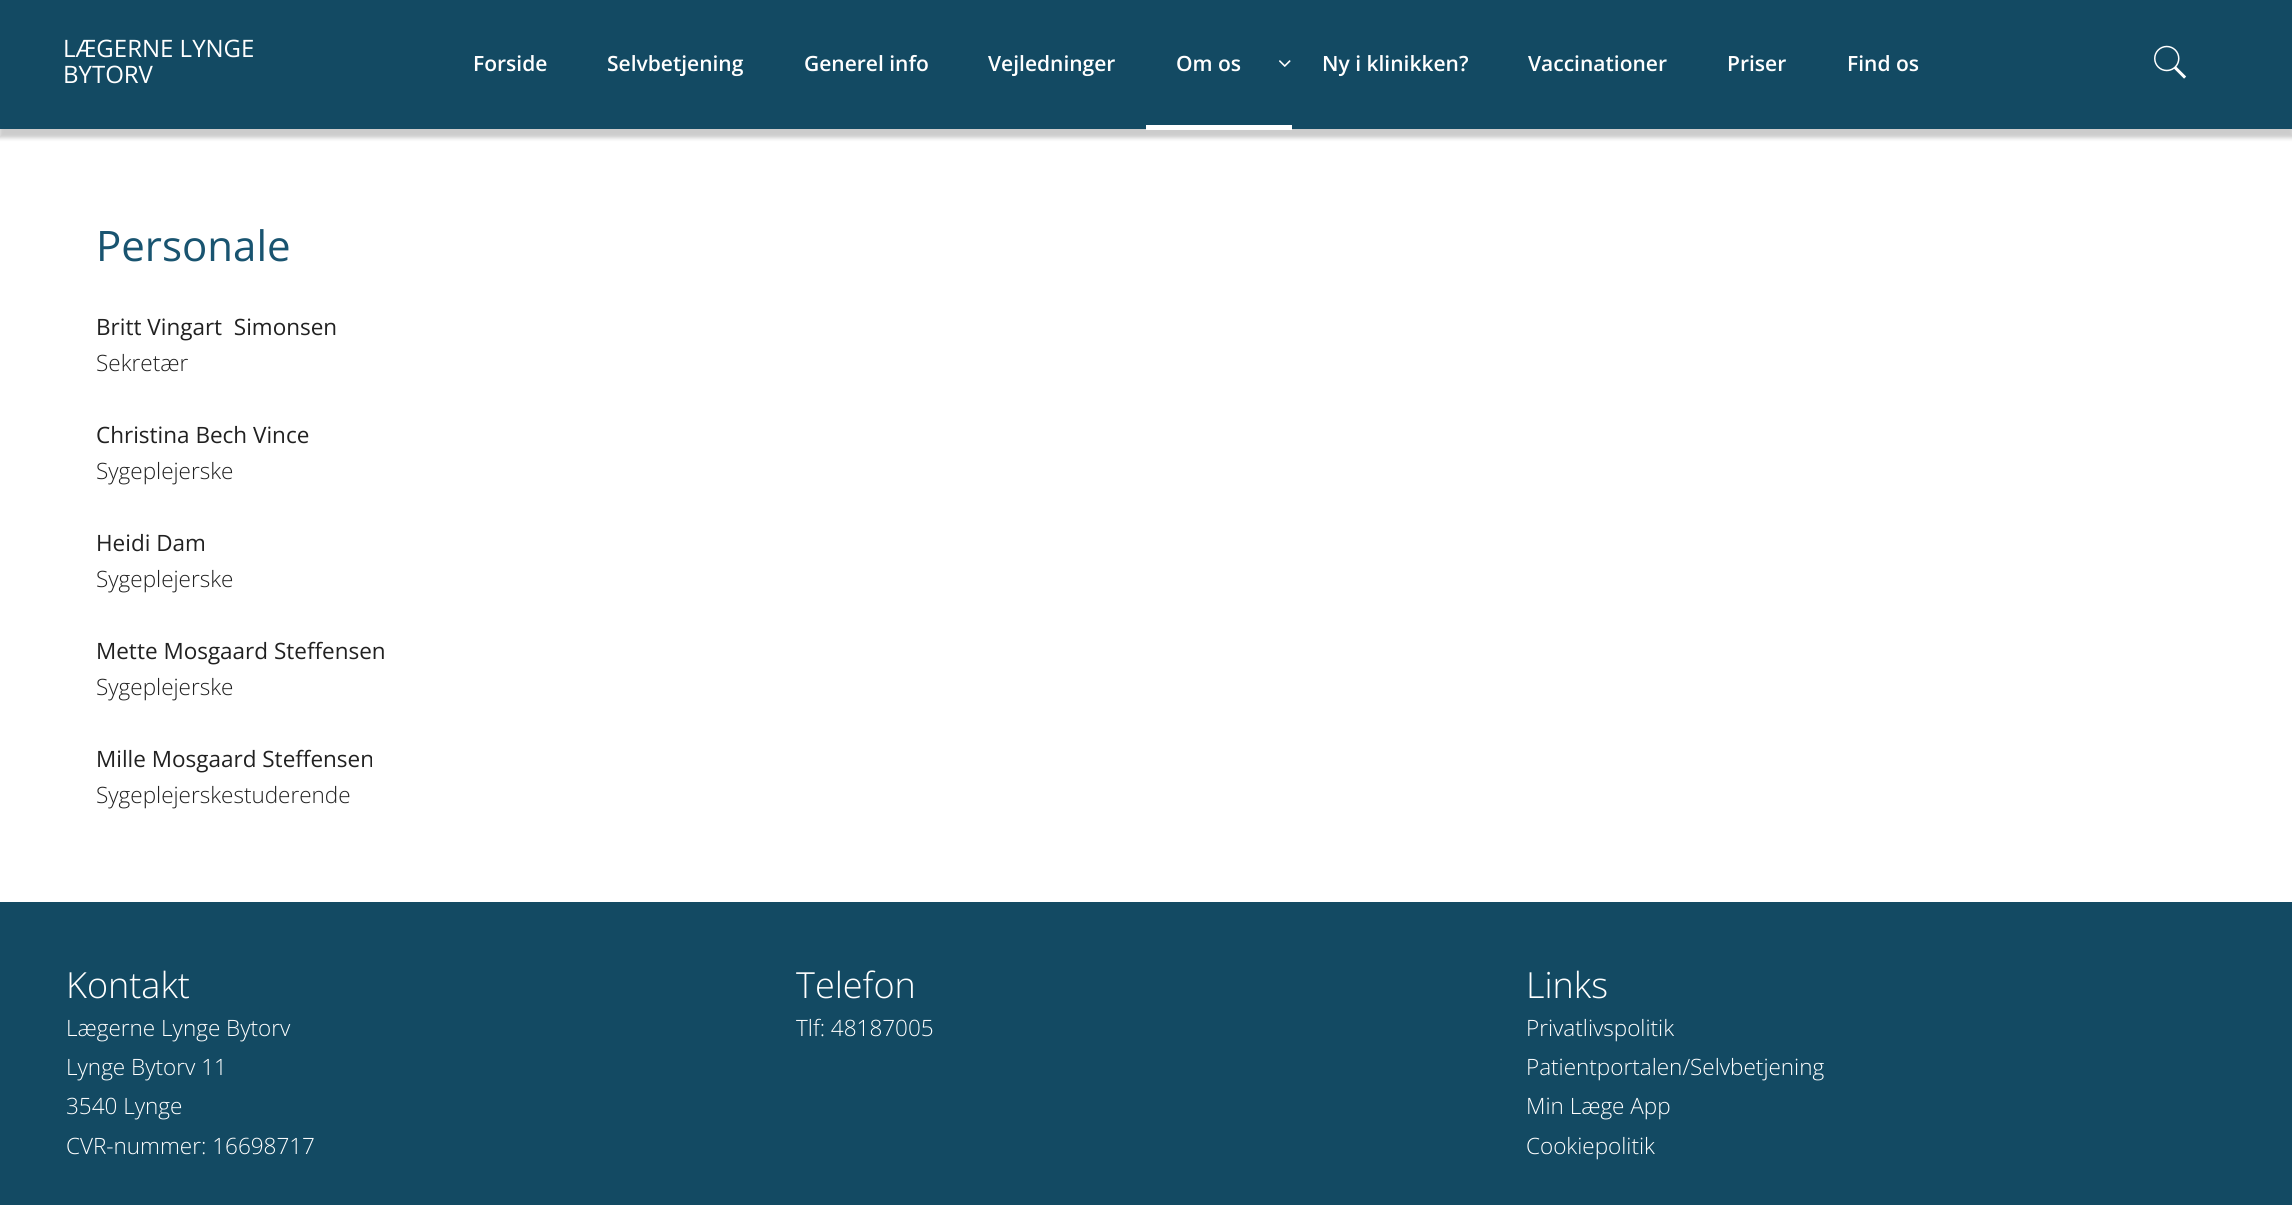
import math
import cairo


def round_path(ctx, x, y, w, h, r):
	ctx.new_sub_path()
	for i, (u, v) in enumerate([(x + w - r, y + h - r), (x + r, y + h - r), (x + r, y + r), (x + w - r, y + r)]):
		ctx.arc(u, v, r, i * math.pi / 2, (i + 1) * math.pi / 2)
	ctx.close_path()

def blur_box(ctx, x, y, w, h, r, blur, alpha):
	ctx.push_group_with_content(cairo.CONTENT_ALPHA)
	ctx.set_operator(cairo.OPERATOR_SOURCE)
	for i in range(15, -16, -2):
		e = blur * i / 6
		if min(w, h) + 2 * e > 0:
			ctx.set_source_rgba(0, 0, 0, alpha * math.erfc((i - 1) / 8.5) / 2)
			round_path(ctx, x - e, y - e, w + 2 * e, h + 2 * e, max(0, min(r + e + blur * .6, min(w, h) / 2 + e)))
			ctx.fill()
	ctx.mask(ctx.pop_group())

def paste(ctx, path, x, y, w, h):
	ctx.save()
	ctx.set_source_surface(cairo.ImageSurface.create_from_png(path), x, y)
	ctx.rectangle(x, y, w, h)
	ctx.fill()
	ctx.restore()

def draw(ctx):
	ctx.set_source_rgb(1, 1, 1)
	ctx.paint()
	ctx.set_source_rgb(0, 0, 0)
	blur_box(ctx, -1, 6, 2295, 132, 0, 2, 0.2)
	ctx.set_source_rgb(0.078, 0.29, 0.388)
	ctx.rectangle(0, 0, 2292, 129)
	ctx.fill()
	ctx.select_font_face('Open Sans')
	ctx.set_font_size(24)
	ctx.set_source_rgb(1, 1, 1)
	ctx.move_to(63, 57)
	ctx.show_text('LÆGERNE LYNGE')
	ctx.move_to(63, 83)
	ctx.show_text('BYTORV')
	ctx.select_font_face('Open Sans SemiBold')
	ctx.set_font_size(21)
	for x, y, s in [
		(473, 71, 'Forside'),
		(607, 71, 'Selvbetjening'),
		(804, 71, 'Generel info'),
		(988, 71, 'Vejledninger'),
	]:
		ctx.move_to(x, y)
		ctx.show_text(s)
	ctx.rectangle(1146, 125, 146, 5)
	ctx.fill()
	ctx.move_to(1176, 71)
	ctx.show_text('Om os')
	paste(ctx, 'media/1.png', 1279, 60, 12, 7)
	for x, y, s in [
		(1322, 71, 'Ny i klinikken?'),
		(1528, 71, 'Vaccinationer'),
		(1727, 71, 'Priser'),
		(1847, 71, 'Find os'),
	]:
		ctx.move_to(x, y)
		ctx.show_text(s)
	paste(ctx, 'media/2.png', 2154, 45, 33, 34)
	ctx.select_font_face('Open Sans')
	ctx.set_font_size(42)
	ctx.set_source_rgb(0.098, 0.329, 0.439)
	ctx.move_to(96, 261)
	ctx.show_text('Personale')
	ctx.set_font_size(22.5)
	ctx.set_source_rgb(0.129, 0.129, 0.129)
	ctx.move_to(96, 335)
	ctx.show_text('Britt Vingart  Simonsen')
	ctx.select_font_face('Open Sans Light')
	ctx.move_to(96, 371)
	ctx.show_text('Sekretær')
	ctx.select_font_face('Open Sans')
	ctx.move_to(96, 443)
	ctx.show_text('Christina Bech Vince')
	ctx.select_font_face('Open Sans Light')
	ctx.move_to(96, 479)
	ctx.show_text('Sygeplejerske')
	ctx.select_font_face('Open Sans')
	ctx.move_to(96, 551)
	ctx.show_text('Heidi Dam')
	ctx.select_font_face('Open Sans Light')
	ctx.move_to(96, 587)
	ctx.show_text('Sygeplejerske')
	ctx.select_font_face('Open Sans')
	ctx.move_to(96, 659)
	ctx.show_text('Mette Mosgaard Steffensen')
	ctx.select_font_face('Open Sans Light')
	ctx.move_to(96, 695)
	ctx.show_text('Sygeplejerske')
	ctx.select_font_face('Open Sans')
	ctx.move_to(96, 767)
	ctx.show_text('Mille Mosgaard Steffensen')
	ctx.select_font_face('Open Sans Light')
	ctx.move_to(96, 803)
	ctx.show_text('Sygeplejerskestuderende')
	ctx.set_source_rgb(0.078, 0.29, 0.388)
	ctx.rectangle(0, 902, 2292, 303)
	ctx.fill()
	ctx.set_font_size(36)
	ctx.set_source_rgb(1, 1, 1)
	ctx.move_to(66, 998)
	ctx.show_text('Kontakt')
	ctx.set_font_size(22.5)
	for x, y, s in [
		(66, 1036, 'Lægerne Lynge Bytorv'),
		(66, 1075, 'Lynge Bytorv 11'),
		(66, 1114, '3540 Lynge'),
		(66, 1154, 'CVR-nummer: 16698717'),
	]:
		ctx.move_to(x, y)
		ctx.show_text(s)
	ctx.set_font_size(36)
	ctx.move_to(796, 998)
	ctx.show_text('Telefon')
	ctx.set_font_size(22.5)
	ctx.move_to(796, 1036)
	ctx.show_text('Tlf: 48187005')
	ctx.set_font_size(36)
	ctx.move_to(1526, 998)
	ctx.show_text('Links')
	ctx.set_font_size(22.5)
	for x, y, s in [
		(1526, 1036, 'Privatlivspolitik'),
		(1526, 1075, 'Patientportalen/Selvbetjening'),
		(1526, 1114, 'Min Læge App'),
		(1526, 1154, 'Cookiepolitik'),
	]:
		ctx.move_to(x, y)
		ctx.show_text(s)


surface = cairo.ImageSurface(cairo.FORMAT_RGB24, 2292, 1205)
ctx = cairo.Context(surface)
options = cairo.FontOptions()
options.set_hint_metrics(cairo.HINT_METRICS_OFF)
options.set_hint_style(cairo.HINT_STYLE_NONE)
ctx.set_font_options(options)
ctx.set_miter_limit(4)
draw(ctx)
surface.write_to_png('image.png')
